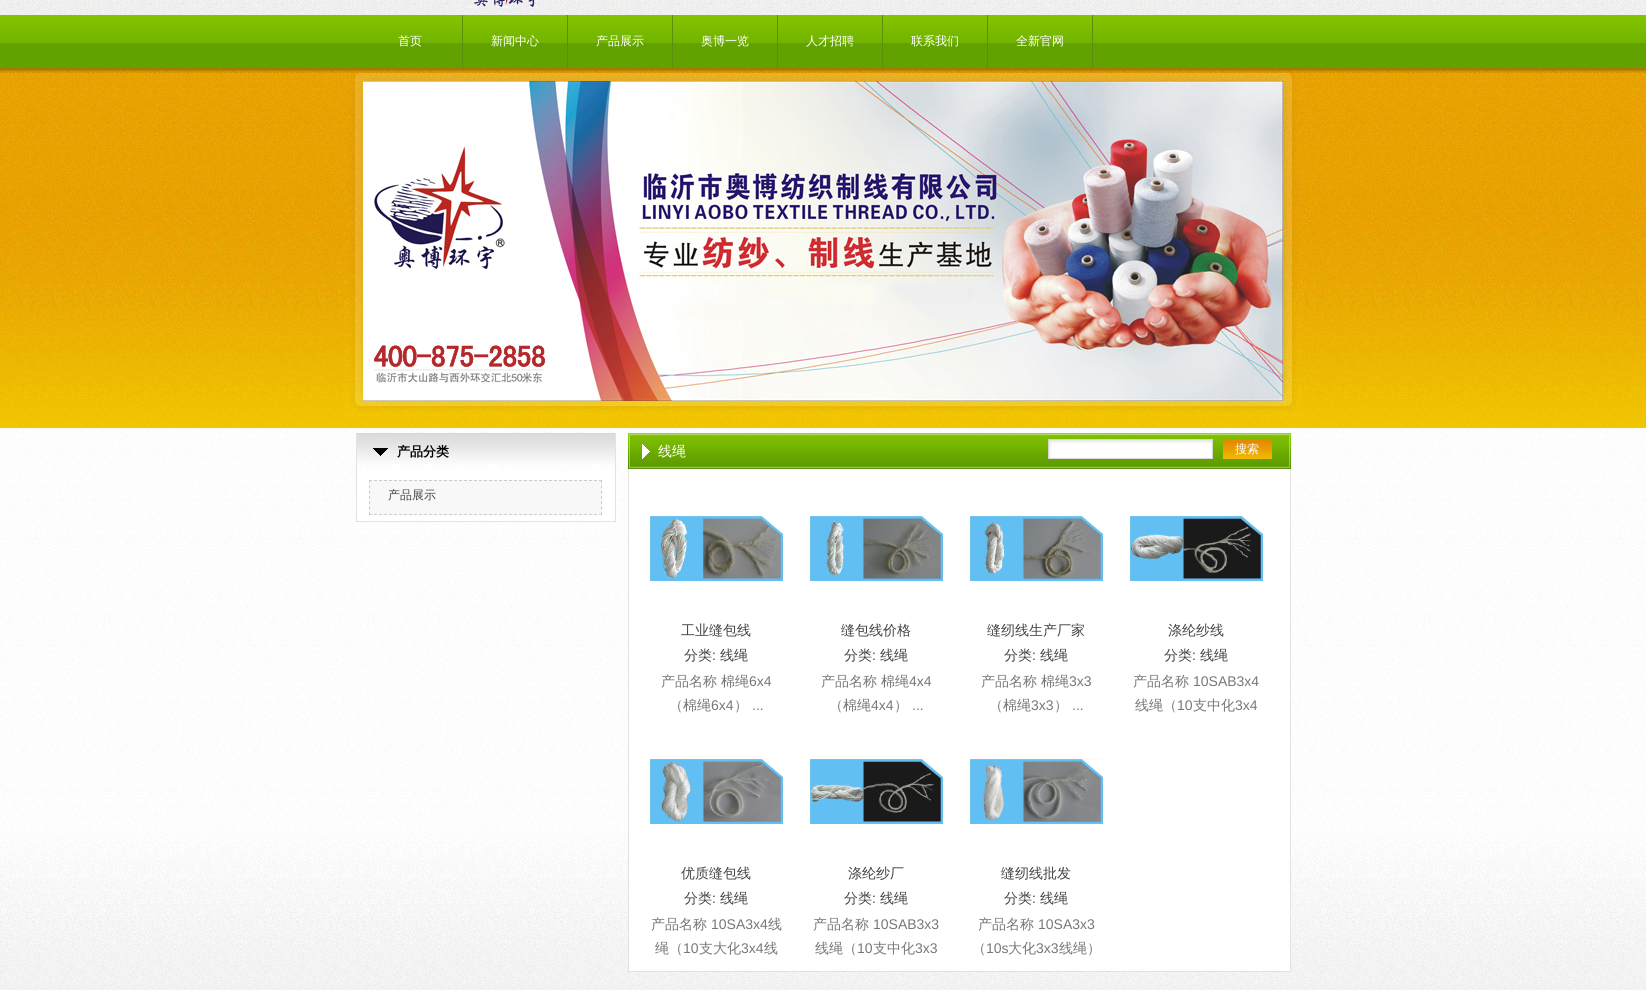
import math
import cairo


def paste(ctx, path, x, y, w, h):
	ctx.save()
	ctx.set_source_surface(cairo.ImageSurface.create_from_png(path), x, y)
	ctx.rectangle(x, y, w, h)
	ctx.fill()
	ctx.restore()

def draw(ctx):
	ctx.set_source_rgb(1, 1, 1)
	ctx.paint()
	paste(ctx, 'media/1.png', 0, 0, 1646, 990)
	paste(ctx, 'media/2.png', 458, 0, 89, 8)
	ctx.set_source_rgb(0.357, 0.557, 0.059)
	ctx.rectangle(462, 15, 1, 53)
	ctx.fill()
	ctx.select_font_face('WenQuanYi Zen Hei Medium')
	ctx.set_font_size(12)
	ctx.set_source_rgb(1, 1, 1)
	ctx.move_to(398, 45)
	ctx.show_text('首页')
	ctx.set_source_rgb(0.357, 0.557, 0.059)
	ctx.rectangle(567, 15, 1, 53)
	ctx.fill()
	ctx.set_source_rgb(1, 1, 1)
	ctx.move_to(491, 45)
	ctx.show_text('新闻中心')
	ctx.set_source_rgb(0.357, 0.557, 0.059)
	ctx.rectangle(672, 15, 1, 53)
	ctx.fill()
	ctx.set_source_rgb(1, 1, 1)
	ctx.move_to(596, 45)
	ctx.show_text('产品展示')
	ctx.set_source_rgb(0.357, 0.557, 0.059)
	ctx.rectangle(777, 15, 1, 53)
	ctx.fill()
	ctx.set_source_rgb(1, 1, 1)
	ctx.move_to(701, 45)
	ctx.show_text('奥博一览')
	ctx.set_source_rgb(0.357, 0.557, 0.059)
	ctx.rectangle(882, 15, 1, 53)
	ctx.fill()
	ctx.set_source_rgb(1, 1, 1)
	ctx.move_to(806, 45)
	ctx.show_text('人才招聘')
	ctx.set_source_rgb(0.357, 0.557, 0.059)
	ctx.rectangle(987, 15, 1, 53)
	ctx.fill()
	ctx.set_source_rgb(1, 1, 1)
	ctx.move_to(911, 45)
	ctx.show_text('联系我们')
	ctx.set_source_rgb(0.357, 0.557, 0.059)
	ctx.rectangle(1092, 15, 1, 53)
	ctx.fill()
	ctx.set_source_rgb(1, 1, 1)
	ctx.move_to(1016, 45)
	ctx.show_text('全新官网')
	paste(ctx, 'media/3.png', 344, 73, 959, 344)
	paste(ctx, 'media/4.png', 357, 434, 258, 30)
	ctx.set_source_rgb(0.835, 0.835, 0.835)
	ctx.rectangle(356, 433, 260, 1)
	ctx.fill()
	ctx.set_source_rgb(0.886, 0.886, 0.886)
	ctx.rectangle(615, 433, 1, 89)
	ctx.rectangle(356, 433, 1, 37)
	ctx.fill()
	ctx.select_font_face('WenQuanYi Zen Hei', cairo.FONT_SLANT_NORMAL, cairo.FONT_WEIGHT_BOLD)
	ctx.set_font_size(13)
	ctx.set_source_rgb(0, 0, 0)
	ctx.move_to(397, 456)
	ctx.show_text('产品分类')
	ctx.set_source_rgb(1, 1, 1)
	ctx.rectangle(357, 470, 258, 51)
	ctx.fill()
	ctx.set_source_rgb(0.886, 0.886, 0.886)
	ctx.rectangle(356, 521, 260, 1)
	ctx.rectangle(356, 470, 1, 52)
	ctx.fill()
	ctx.set_source_rgb(0.969, 0.969, 0.969)
	ctx.rectangle(369, 480, 233, 35)
	ctx.fill()
	ctx.new_path()
	ctx.move_to(369, 480.5)
	ctx.line_to(602, 480.5)
	ctx.set_source_rgb(0.8, 0.8, 0.8)
	ctx.set_line_width(1)
	ctx.set_dash([3, 2])
	ctx.stroke()
	ctx.new_path()
	ctx.move_to(601.5, 480)
	ctx.line_to(601.5, 515)
	ctx.set_dash([3, 2.33])
	ctx.stroke()
	ctx.new_path()
	ctx.move_to(369, 514.5)
	ctx.line_to(602, 514.5)
	ctx.set_dash([3, 2])
	ctx.stroke()
	ctx.new_path()
	ctx.move_to(369.5, 480)
	ctx.line_to(369.5, 515)
	ctx.set_dash([3, 2.33])
	ctx.stroke()
	ctx.select_font_face('WenQuanYi Zen Hei Medium')
	ctx.set_font_size(12)
	ctx.set_source_rgb(0.267, 0.267, 0.267)
	ctx.move_to(388, 499)
	ctx.show_text('产品展示')
	paste(ctx, 'media/5.png', 628, 433, 663, 36)
	ctx.set_font_size(14)
	ctx.set_source_rgb(1, 1, 1)
	ctx.move_to(658, 456)
	ctx.show_text('线绳')
	paste(ctx, 'media/6.png', 1049, 440, 163, 18)
	ctx.rectangle(1048.5, 439.5, 164, 19)
	ctx.set_source_rgb(0.839, 0.839, 0.839)
	ctx.set_dash([])
	ctx.stroke()
	paste(ctx, 'media/7.png', 1223, 439, 49, 20)
	ctx.set_font_size(12)
	ctx.set_source_rgb(1, 1, 1)
	ctx.move_to(1235, 453)
	ctx.show_text('搜索')
	ctx.rectangle(629, 469, 661, 502)
	ctx.fill()
	ctx.set_source_rgb(0.886, 0.886, 0.886)
	ctx.rectangle(1290, 469, 1, 503)
	ctx.rectangle(628, 971, 663, 1)
	ctx.rectangle(628, 469, 1, 503)
	ctx.fill()
	paste(ctx, 'media/8.png', 650, 516, 133, 65)
	ctx.set_font_size(14)
	ctx.set_source_rgb(0.267, 0.267, 0.267)
	ctx.move_to(681, 635)
	ctx.show_text('工业缝包线')
	ctx.move_to(684, 660)
	ctx.show_text('分类')
	ctx.select_font_face('Liberation Sans')
	ctx.move_to(712, 660)
	ctx.show_text(':')
	ctx.select_font_face('WenQuanYi Zen Hei Medium')
	ctx.move_to(720, 660)
	ctx.show_text('线绳')
	ctx.set_source_rgb(0.467, 0.467, 0.467)
	ctx.move_to(661, 686)
	ctx.show_text('产品名称')
	ctx.move_to(721, 686)
	ctx.show_text('棉绳')
	ctx.select_font_face('Liberation Sans')
	ctx.move_to(749, 686)
	ctx.show_text('6x4')
	ctx.select_font_face('WenQuanYi Zen Hei Medium')
	ctx.move_to(669, 710)
	ctx.show_text('（棉绳')
	ctx.select_font_face('Liberation Sans')
	ctx.move_to(711, 710)
	ctx.show_text('6x4')
	ctx.select_font_face('WenQuanYi Zen Hei Medium')
	ctx.move_to(734, 710)
	ctx.show_text('）')
	ctx.select_font_face('Liberation Sans')
	ctx.move_to(752, 710)
	ctx.show_text('...')
	paste(ctx, 'media/9.png', 810, 516, 133, 65)
	ctx.select_font_face('WenQuanYi Zen Hei Medium')
	ctx.set_source_rgb(0.267, 0.267, 0.267)
	ctx.move_to(841, 635)
	ctx.show_text('缝包线价格')
	ctx.move_to(844, 660)
	ctx.show_text('分类')
	ctx.select_font_face('Liberation Sans')
	ctx.move_to(872, 660)
	ctx.show_text(':')
	ctx.select_font_face('WenQuanYi Zen Hei Medium')
	ctx.move_to(880, 660)
	ctx.show_text('线绳')
	ctx.set_source_rgb(0.467, 0.467, 0.467)
	ctx.move_to(821, 686)
	ctx.show_text('产品名称')
	ctx.move_to(881, 686)
	ctx.show_text('棉绳')
	ctx.select_font_face('Liberation Sans')
	ctx.move_to(909, 686)
	ctx.show_text('4x4')
	ctx.select_font_face('WenQuanYi Zen Hei Medium')
	ctx.move_to(829, 710)
	ctx.show_text('（棉绳')
	ctx.select_font_face('Liberation Sans')
	ctx.move_to(871, 710)
	ctx.show_text('4x4')
	ctx.select_font_face('WenQuanYi Zen Hei Medium')
	ctx.move_to(894, 710)
	ctx.show_text('）')
	ctx.select_font_face('Liberation Sans')
	ctx.move_to(912, 710)
	ctx.show_text('...')
	paste(ctx, 'media/10.png', 970, 516, 133, 65)
	ctx.select_font_face('WenQuanYi Zen Hei Medium')
	ctx.set_source_rgb(0.267, 0.267, 0.267)
	ctx.move_to(987, 635)
	ctx.show_text('缝纫线生产厂家')
	ctx.move_to(1004, 660)
	ctx.show_text('分类')
	ctx.select_font_face('Liberation Sans')
	ctx.move_to(1032, 660)
	ctx.show_text(':')
	ctx.select_font_face('WenQuanYi Zen Hei Medium')
	ctx.move_to(1040, 660)
	ctx.show_text('线绳')
	ctx.set_source_rgb(0.467, 0.467, 0.467)
	ctx.move_to(981, 686)
	ctx.show_text('产品名称')
	ctx.move_to(1041, 686)
	ctx.show_text('棉绳')
	ctx.select_font_face('Liberation Sans')
	ctx.move_to(1069, 686)
	ctx.show_text('3x3')
	ctx.select_font_face('WenQuanYi Zen Hei Medium')
	ctx.move_to(989, 710)
	ctx.show_text('（棉绳')
	ctx.select_font_face('Liberation Sans')
	ctx.move_to(1031, 710)
	ctx.show_text('3x3')
	ctx.select_font_face('WenQuanYi Zen Hei Medium')
	ctx.move_to(1054, 710)
	ctx.show_text('）')
	ctx.select_font_face('Liberation Sans')
	ctx.move_to(1072, 710)
	ctx.show_text('...')
	paste(ctx, 'media/11.png', 1130, 516, 133, 65)
	ctx.select_font_face('WenQuanYi Zen Hei Medium')
	ctx.set_source_rgb(0.267, 0.267, 0.267)
	ctx.move_to(1168, 635)
	ctx.show_text('涤纶纱线')
	ctx.move_to(1164, 660)
	ctx.show_text('分类')
	ctx.select_font_face('Liberation Sans')
	ctx.move_to(1192, 660)
	ctx.show_text(':')
	ctx.select_font_face('WenQuanYi Zen Hei Medium')
	ctx.move_to(1200, 660)
	ctx.show_text('线绳')
	ctx.set_source_rgb(0.467, 0.467, 0.467)
	ctx.move_to(1133, 686)
	ctx.show_text('产品名称')
	ctx.select_font_face('Liberation Sans')
	ctx.move_to(1193, 686)
	ctx.show_text('10SAB3x4')
	ctx.select_font_face('WenQuanYi Zen Hei Medium')
	ctx.move_to(1135, 710)
	ctx.show_text('线绳（')
	ctx.select_font_face('Liberation Sans')
	ctx.move_to(1177, 710)
	ctx.show_text('10')
	ctx.select_font_face('WenQuanYi Zen Hei Medium')
	ctx.move_to(1193, 710)
	ctx.show_text('支中化')
	ctx.select_font_face('Liberation Sans')
	ctx.move_to(1235, 710)
	ctx.show_text('3x4')
	paste(ctx, 'media/12.png', 650, 759, 133, 65)
	ctx.select_font_face('WenQuanYi Zen Hei Medium')
	ctx.set_source_rgb(0.267, 0.267, 0.267)
	ctx.move_to(681, 878)
	ctx.show_text('优质缝包线')
	ctx.move_to(684, 903)
	ctx.show_text('分类')
	ctx.select_font_face('Liberation Sans')
	ctx.move_to(712, 903)
	ctx.show_text(':')
	ctx.select_font_face('WenQuanYi Zen Hei Medium')
	ctx.move_to(720, 903)
	ctx.show_text('线绳')
	ctx.set_source_rgb(0.467, 0.467, 0.467)
	ctx.move_to(651, 929)
	ctx.show_text('产品名称')
	ctx.select_font_face('Liberation Sans')
	ctx.move_to(711, 929)
	ctx.show_text('10SA3x4')
	ctx.select_font_face('WenQuanYi Zen Hei Medium')
	ctx.move_to(768, 929)
	ctx.show_text('线')
	ctx.move_to(655, 953)
	ctx.show_text('绳（')
	ctx.select_font_face('Liberation Sans')
	ctx.move_to(683, 953)
	ctx.show_text('10')
	ctx.select_font_face('WenQuanYi Zen Hei Medium')
	ctx.move_to(699, 953)
	ctx.show_text('支大化')
	ctx.select_font_face('Liberation Sans')
	ctx.move_to(741, 953)
	ctx.show_text('3x4')
	ctx.select_font_face('WenQuanYi Zen Hei Medium')
	ctx.move_to(764, 953)
	ctx.show_text('线')
	paste(ctx, 'media/13.png', 810, 759, 133, 65)
	ctx.set_source_rgb(0.267, 0.267, 0.267)
	ctx.move_to(848, 878)
	ctx.show_text('涤纶纱厂')
	ctx.move_to(844, 903)
	ctx.show_text('分类')
	ctx.select_font_face('Liberation Sans')
	ctx.move_to(872, 903)
	ctx.show_text(':')
	ctx.select_font_face('WenQuanYi Zen Hei Medium')
	ctx.move_to(880, 903)
	ctx.show_text('线绳')
	ctx.set_source_rgb(0.467, 0.467, 0.467)
	ctx.move_to(813, 929)
	ctx.show_text('产品名称')
	ctx.select_font_face('Liberation Sans')
	ctx.move_to(873, 929)
	ctx.show_text('10SAB3x3')
	ctx.select_font_face('WenQuanYi Zen Hei Medium')
	ctx.move_to(815, 953)
	ctx.show_text('线绳（')
	ctx.select_font_face('Liberation Sans')
	ctx.move_to(857, 953)
	ctx.show_text('10')
	ctx.select_font_face('WenQuanYi Zen Hei Medium')
	ctx.move_to(873, 953)
	ctx.show_text('支中化')
	ctx.select_font_face('Liberation Sans')
	ctx.move_to(915, 953)
	ctx.show_text('3x3')
	paste(ctx, 'media/14.png', 970, 759, 133, 65)
	ctx.select_font_face('WenQuanYi Zen Hei Medium')
	ctx.set_source_rgb(0.267, 0.267, 0.267)
	ctx.move_to(1001, 878)
	ctx.show_text('缝纫线批发')
	ctx.move_to(1004, 903)
	ctx.show_text('分类')
	ctx.select_font_face('Liberation Sans')
	ctx.move_to(1032, 903)
	ctx.show_text(':')
	ctx.select_font_face('WenQuanYi Zen Hei Medium')
	ctx.move_to(1040, 903)
	ctx.show_text('线绳')
	ctx.set_source_rgb(0.467, 0.467, 0.467)
	ctx.move_to(978, 929)
	ctx.show_text('产品名称')
	ctx.select_font_face('Liberation Sans')
	ctx.move_to(1038, 929)
	ctx.show_text('10SA3x3')
	ctx.select_font_face('WenQuanYi Zen Hei Medium')
	ctx.move_to(972, 953)
	ctx.show_text('（')
	ctx.select_font_face('Liberation Sans')
	ctx.move_to(986, 953)
	ctx.show_text('10s')
	ctx.select_font_face('WenQuanYi Zen Hei Medium')
	ctx.move_to(1008, 953)
	ctx.show_text('大化')
	ctx.select_font_face('Liberation Sans')
	ctx.move_to(1036, 953)
	ctx.show_text('3x3')
	ctx.select_font_face('WenQuanYi Zen Hei Medium')
	ctx.move_to(1059, 953)
	ctx.show_text('线绳）')


surface = cairo.ImageSurface(cairo.FORMAT_RGB24, 1646, 990)
ctx = cairo.Context(surface)
options = cairo.FontOptions()
options.set_hint_metrics(cairo.HINT_METRICS_OFF)
options.set_hint_style(cairo.HINT_STYLE_NONE)
ctx.set_font_options(options)
ctx.set_miter_limit(4)
draw(ctx)
surface.write_to_png('image.png')
